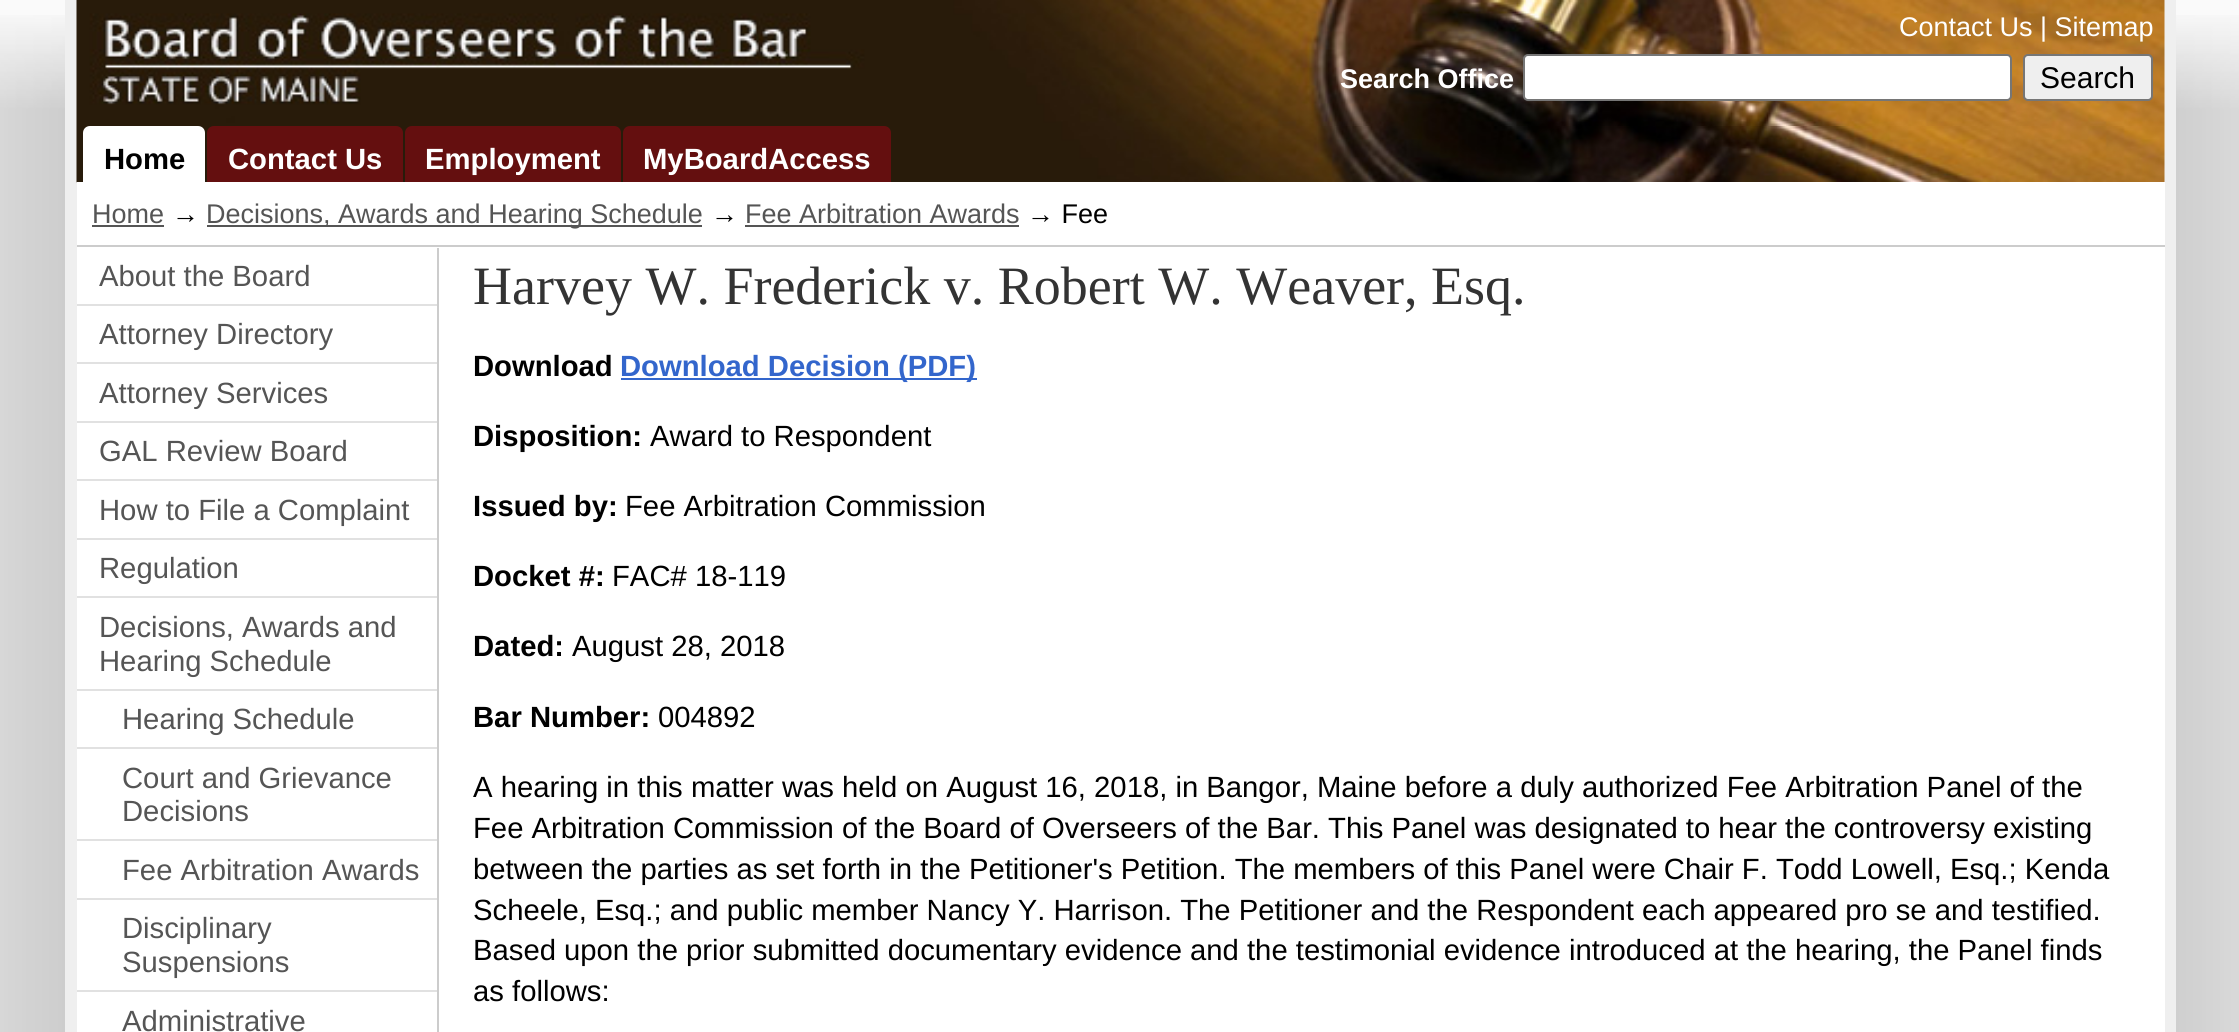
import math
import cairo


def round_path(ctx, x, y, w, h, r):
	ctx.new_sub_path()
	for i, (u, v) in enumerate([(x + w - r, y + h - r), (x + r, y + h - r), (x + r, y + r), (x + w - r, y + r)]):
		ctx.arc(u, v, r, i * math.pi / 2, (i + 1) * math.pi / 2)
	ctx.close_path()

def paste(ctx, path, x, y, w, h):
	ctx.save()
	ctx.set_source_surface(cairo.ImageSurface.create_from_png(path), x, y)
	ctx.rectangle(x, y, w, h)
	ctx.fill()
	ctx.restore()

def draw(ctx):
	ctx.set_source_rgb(0.98, 0.98, 0.98)
	ctx.paint()
	paste(ctx, 'media/1.png', 0, 15, 2239, 1017)
	ctx.set_source_rgb(0.937, 0.937, 0.937)
	ctx.rectangle(65, 0, 2111, 1032)
	ctx.fill()
	paste(ctx, 'media/2.png', 76, 0, 2089, 126)
	ctx.select_font_face('Liberation Sans')
	ctx.set_font_size(27)
	ctx.set_source_rgb(1, 1, 1)
	ctx.move_to(1899, 36)
	ctx.show_text('Contact Us | Sitemap')
	ctx.select_font_face('Liberation Sans', cairo.FONT_SLANT_NORMAL, cairo.FONT_WEIGHT_BOLD)
	ctx.move_to(1340, 88)
	ctx.show_text('Search Office')
	round_path(ctx, 1524, 55, 487, 45, 4)
	ctx.fill_preserve()
	ctx.set_source_rgb(0.463, 0.463, 0.463)
	ctx.stroke()
	ctx.set_source_rgb(0.937, 0.937, 0.937)
	round_path(ctx, 2024, 55, 128, 45, 4)
	ctx.fill_preserve()
	ctx.set_source_rgb(0.463, 0.463, 0.463)
	ctx.stroke()
	ctx.select_font_face('Liberation Sans')
	ctx.set_font_size(30)
	ctx.set_source_rgb(0, 0, 0)
	ctx.move_to(2040, 88)
	ctx.show_text('Search')
	paste(ctx, 'media/3.png', 76, 126, 2089, 57)
	ctx.set_source_rgb(1, 1, 1)
	ctx.new_path()
	ctx.move_to(90, 126)
	ctx.line_to(198, 126)
	ctx.curve_to(202, 126, 205, 129, 205, 133)
	ctx.line_to(205, 182)
	ctx.line_to(83, 182)
	ctx.line_to(83, 133)
	ctx.curve_to(83, 129, 86, 126, 90, 126)
	ctx.close_path()
	ctx.fill()
	ctx.select_font_face('Liberation Sans', cairo.FONT_SLANT_NORMAL, cairo.FONT_WEIGHT_BOLD)
	ctx.set_font_size(29.25)
	ctx.set_source_rgb(0, 0, 0)
	ctx.move_to(104, 169)
	ctx.show_text('Home')
	ctx.set_source_rgb(0.392, 0.059, 0.059)
	ctx.new_path()
	ctx.move_to(214, 126)
	ctx.line_to(396, 126)
	ctx.curve_to(400, 126, 403, 129, 403, 133)
	ctx.line_to(403, 182)
	ctx.line_to(207, 182)
	ctx.line_to(207, 133)
	ctx.curve_to(207, 129, 210, 126, 214, 126)
	ctx.close_path()
	ctx.fill()
	ctx.set_source_rgb(1, 1, 1)
	ctx.move_to(228, 169)
	ctx.show_text('Contact Us')
	ctx.set_source_rgb(0.392, 0.059, 0.059)
	ctx.new_path()
	ctx.move_to(412, 126)
	ctx.line_to(614, 126)
	ctx.curve_to(618, 126, 621, 129, 621, 133)
	ctx.line_to(621, 182)
	ctx.line_to(405, 182)
	ctx.line_to(405, 133)
	ctx.curve_to(405, 129, 408, 126, 412, 126)
	ctx.close_path()
	ctx.fill()
	ctx.set_source_rgb(1, 1, 1)
	ctx.move_to(425, 169)
	ctx.show_text('Employment')
	ctx.set_source_rgb(0.392, 0.059, 0.059)
	ctx.new_path()
	ctx.move_to(630, 126)
	ctx.line_to(884, 126)
	ctx.curve_to(888, 126, 891, 129, 891, 133)
	ctx.line_to(891, 182)
	ctx.line_to(623, 182)
	ctx.line_to(623, 133)
	ctx.curve_to(623, 129, 626, 126, 630, 126)
	ctx.close_path()
	ctx.fill()
	ctx.set_source_rgb(1, 1, 1)
	ctx.move_to(643, 169)
	ctx.show_text('MyBoardAccess')
	ctx.rectangle(77, 182, 2088, 850)
	ctx.fill()
	ctx.set_source_rgb(0.8, 0.8, 0.8)
	ctx.rectangle(77, 245, 2088, 2)
	ctx.fill()
	ctx.select_font_face('Liberation Sans')
	ctx.set_font_size(27)
	ctx.set_source_rgb(0.333, 0.333, 0.333)
	ctx.move_to(92, 223)
	ctx.show_text('Home')
	ctx.rectangle(92, 225, 72, 2)
	ctx.fill()
	ctx.set_source_rgb(0, 0, 0)
	ctx.move_to(172, 223)
	ctx.show_text('→')
	ctx.set_source_rgb(0.333, 0.333, 0.333)
	ctx.rectangle(207, 225, 495, 2)
	ctx.fill()
	ctx.move_to(206, 223)
	ctx.show_text('Decisions, Awards and Hearing Schedule')
	ctx.set_source_rgb(0, 0, 0)
	ctx.move_to(711, 223)
	ctx.show_text('→')
	ctx.set_source_rgb(0.333, 0.333, 0.333)
	ctx.move_to(745, 223)
	ctx.show_text('Fee Arbitration Awards')
	ctx.rectangle(745, 225, 274, 2)
	ctx.fill()
	ctx.set_source_rgb(0, 0, 0)
	ctx.move_to(1027, 223)
	ctx.show_text('→ Fee')
	ctx.set_source_rgb(0.8, 0.8, 0.8)
	ctx.rectangle(437, 248, 2, 784)
	ctx.fill()
	ctx.set_source_rgb(0.882, 0.882, 0.882)
	ctx.rectangle(77, 304, 360, 2)
	ctx.fill()
	ctx.set_font_size(29.25)
	ctx.set_source_rgb(0.333, 0.333, 0.333)
	ctx.move_to(99, 286)
	ctx.show_text('About the Board')
	ctx.set_source_rgb(0.882, 0.882, 0.882)
	ctx.rectangle(77, 362, 360, 2)
	ctx.fill()
	ctx.set_source_rgb(0.333, 0.333, 0.333)
	ctx.move_to(99, 344)
	ctx.show_text('Attorney Directory')
	ctx.set_source_rgb(0.882, 0.882, 0.882)
	ctx.rectangle(77, 421, 360, 2)
	ctx.fill()
	ctx.set_source_rgb(0.333, 0.333, 0.333)
	ctx.move_to(99, 403)
	ctx.show_text('Attorney Services')
	ctx.set_source_rgb(0.882, 0.882, 0.882)
	ctx.rectangle(77, 479, 360, 2)
	ctx.fill()
	ctx.set_source_rgb(0.333, 0.333, 0.333)
	ctx.move_to(99, 461)
	ctx.show_text('GAL Review Board')
	ctx.set_source_rgb(0.882, 0.882, 0.882)
	ctx.rectangle(77, 538, 360, 2)
	ctx.fill()
	ctx.set_source_rgb(0.333, 0.333, 0.333)
	ctx.move_to(99, 520)
	ctx.show_text('How to File a Complaint')
	ctx.set_source_rgb(0.882, 0.882, 0.882)
	ctx.rectangle(77, 596, 360, 2)
	ctx.fill()
	ctx.set_source_rgb(0.333, 0.333, 0.333)
	ctx.move_to(99, 578)
	ctx.show_text('Regulation')
	ctx.set_source_rgb(0.882, 0.882, 0.882)
	ctx.rectangle(77, 689, 360, 2)
	ctx.fill()
	ctx.set_source_rgb(0.333, 0.333, 0.333)
	ctx.move_to(99, 637)
	ctx.show_text('Decisions, Awards and')
	ctx.move_to(99, 671)
	ctx.show_text('Hearing Schedule')
	ctx.set_source_rgb(0.882, 0.882, 0.882)
	ctx.rectangle(77, 747, 360, 2)
	ctx.fill()
	ctx.set_source_rgb(0.333, 0.333, 0.333)
	ctx.move_to(122, 729)
	ctx.show_text('Hearing Schedule')
	ctx.set_source_rgb(0.882, 0.882, 0.882)
	ctx.rectangle(77, 839, 360, 2)
	ctx.fill()
	ctx.set_source_rgb(0.333, 0.333, 0.333)
	ctx.move_to(122, 788)
	ctx.show_text('Court and Grievance')
	ctx.move_to(122, 821)
	ctx.show_text('Decisions')
	ctx.set_source_rgb(0.882, 0.882, 0.882)
	ctx.rectangle(77, 898, 360, 2)
	ctx.fill()
	ctx.set_source_rgb(0.333, 0.333, 0.333)
	ctx.move_to(122, 880)
	ctx.show_text('Fee Arbitration Awards')
	ctx.set_source_rgb(0.882, 0.882, 0.882)
	ctx.rectangle(77, 990, 360, 2)
	ctx.fill()
	ctx.set_source_rgb(0.333, 0.333, 0.333)
	for x, y, s in [
		(122, 938, 'Disciplinary'),
		(122, 972, 'Suspensions'),
		(122, 1031, 'Administrative'),
	]:
		ctx.move_to(x, y)
		ctx.show_text(s)
	ctx.select_font_face('Liberation Serif')
	ctx.set_font_size(54)
	ctx.set_source_rgb(0.2, 0.2, 0.2)
	ctx.move_to(473, 304)
	ctx.show_text('Harvey W. Frederick v. Robert W. Weaver, Esq.')
	ctx.select_font_face('Liberation Sans', cairo.FONT_SLANT_NORMAL, cairo.FONT_WEIGHT_BOLD)
	ctx.set_font_size(29.25)
	ctx.set_source_rgb(0, 0, 0)
	ctx.move_to(473, 376)
	ctx.show_text('Download')
	ctx.set_source_rgb(0.2, 0.4, 0.8)
	ctx.rectangle(621, 378, 356, 2)
	ctx.fill()
	ctx.move_to(620, 376)
	ctx.show_text('Download Decision (PDF)')
	ctx.set_source_rgb(0, 0, 0)
	ctx.move_to(473, 446)
	ctx.show_text('Disposition:')
	ctx.select_font_face('Liberation Sans')
	ctx.move_to(650, 446)
	ctx.show_text('Award to Respondent')
	ctx.select_font_face('Liberation Sans', cairo.FONT_SLANT_NORMAL, cairo.FONT_WEIGHT_BOLD)
	ctx.move_to(473, 516)
	ctx.show_text('Issued by:')
	ctx.select_font_face('Liberation Sans')
	ctx.move_to(625, 516)
	ctx.show_text('Fee Arbitration Commission')
	ctx.select_font_face('Liberation Sans', cairo.FONT_SLANT_NORMAL, cairo.FONT_WEIGHT_BOLD)
	ctx.move_to(473, 586)
	ctx.show_text('Docket #:')
	ctx.select_font_face('Liberation Sans')
	ctx.move_to(612, 586)
	ctx.show_text('FAC# 18-119')
	ctx.select_font_face('Liberation Sans', cairo.FONT_SLANT_NORMAL, cairo.FONT_WEIGHT_BOLD)
	ctx.move_to(473, 656)
	ctx.show_text('Dated:')
	ctx.select_font_face('Liberation Sans')
	ctx.move_to(572, 656)
	ctx.show_text('August 28, 2018')
	ctx.select_font_face('Liberation Sans', cairo.FONT_SLANT_NORMAL, cairo.FONT_WEIGHT_BOLD)
	ctx.move_to(473, 727)
	ctx.show_text('Bar Number:')
	ctx.select_font_face('Liberation Sans')
	for x, y, s in [
		(658, 727, '004892'),
		(473, 797, 'A hearing in this matter was held on August 16, 2018, in Bangor, Maine before a duly authorized Fee Arbitration Panel of the'),
		(473, 838, 'Fee Arbitration Commission of the Board of Overseers of the Bar. This Panel was designated to hear the controversy existing'),
		(473, 879, 'between the parties as set forth in the Petitioner\'s Petition. The members of this Panel were Chair F. Todd Lowell, Esq.; Kenda'),
		(473, 920, 'Scheele, Esq.; and public member Nancy Y. Harrison. The Petitioner and the Respondent each appeared pro se and testified.'),
		(473, 960, 'Based upon the prior submitted documentary evidence and the testimonial evidence introduced at the hearing, the Panel finds'),
		(473, 1001, 'as follows:'),
	]:
		ctx.move_to(x, y)
		ctx.show_text(s)


surface = cairo.ImageSurface(cairo.FORMAT_RGB24, 2239, 1032)
ctx = cairo.Context(surface)
options = cairo.FontOptions()
options.set_hint_metrics(cairo.HINT_METRICS_OFF)
options.set_hint_style(cairo.HINT_STYLE_NONE)
ctx.set_font_options(options)
ctx.set_miter_limit(4)
draw(ctx)
surface.write_to_png('image.png')
